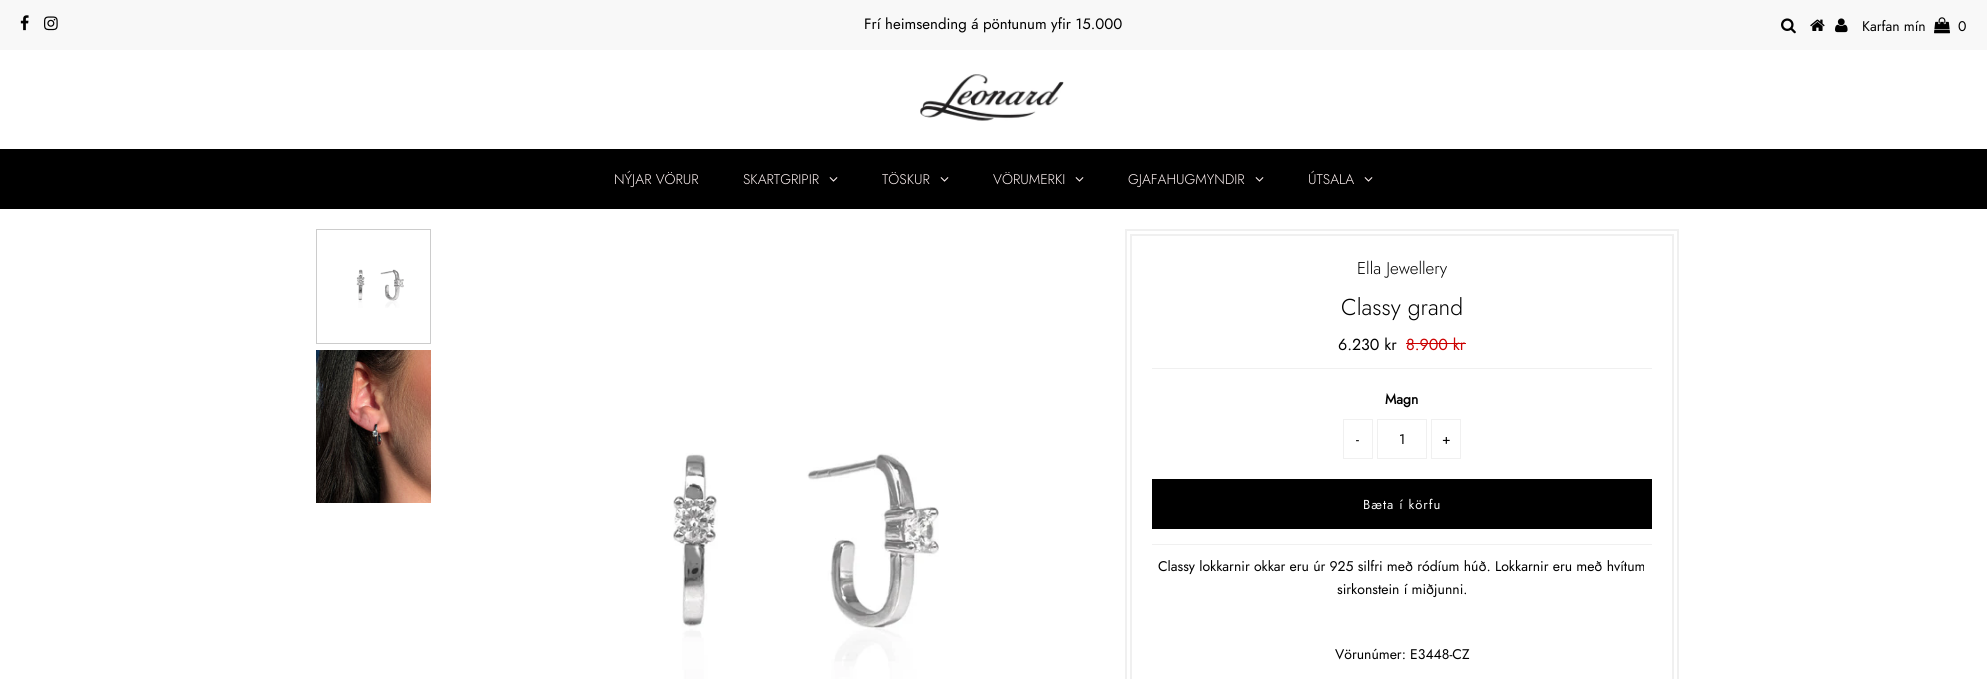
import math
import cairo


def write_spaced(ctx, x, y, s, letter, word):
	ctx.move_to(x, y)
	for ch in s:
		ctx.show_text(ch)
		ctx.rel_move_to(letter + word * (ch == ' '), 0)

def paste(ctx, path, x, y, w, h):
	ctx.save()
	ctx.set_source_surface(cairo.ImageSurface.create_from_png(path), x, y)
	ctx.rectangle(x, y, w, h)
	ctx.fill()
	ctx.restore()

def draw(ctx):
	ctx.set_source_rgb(1, 1, 1)
	ctx.paint()
	ctx.set_source_rgb(0.969, 0.969, 0.969)
	ctx.rectangle(0, 0, 1987, 50)
	ctx.fill()
	paste(ctx, 'media/1.png', 20, 15, 9, 16)
	paste(ctx, 'media/2.png', 44, 16, 14, 15)
	ctx.select_font_face('Jost')
	ctx.set_font_size(15)
	ctx.set_source_rgb(0, 0, 0)
	ctx.move_to(864, 29)
	ctx.show_text('Frí heimsending á pöntunum yfir 15.000')
	paste(ctx, 'media/3.png', 1781, 18, 15, 16)
	paste(ctx, 'media/4.png', 1810, 19, 15, 12)
	paste(ctx, 'media/5.png', 1835, 18, 13, 15)
	ctx.set_font_size(14)
	ctx.move_to(1862, 31)
	ctx.show_text('Karfan mín')
	paste(ctx, 'media/6.png', 1934, 17, 16, 17)
	ctx.move_to(1958, 31)
	ctx.show_text('0')
	paste(ctx, 'media/7.png', 920, 74, 144, 47)
	ctx.rectangle(0, 149, 1987, 60)
	ctx.fill()
	ctx.select_font_face('Jost Light')
	ctx.set_source_rgb(1, 0.953, 0.953)
	ctx.move_to(614, 184)
	ctx.show_text('NÝJAR VÖRUR')
	ctx.move_to(743, 184)
	ctx.show_text('SKARTGRIPIR')
	paste(ctx, 'media/8.png', 829, 177, 9, 5)
	ctx.move_to(882, 184)
	ctx.show_text('TÖSKUR')
	paste(ctx, 'media/8.png', 940, 177, 9, 5)
	ctx.move_to(993, 184)
	ctx.show_text('VÖRUMERKI')
	paste(ctx, 'media/8.png', 1075, 177, 9, 5)
	ctx.move_to(1128, 184)
	ctx.show_text('GJAFAHUGMYNDIR')
	paste(ctx, 'media/8.png', 1255, 177, 9, 5)
	ctx.move_to(1308, 184)
	ctx.show_text('ÚTSALA')
	paste(ctx, 'media/8.png', 1364, 177, 9, 5)
	ctx.rectangle(316.5, 229.5, 114, 114)
	ctx.set_source_rgb(0.8, 0.8, 0.8)
	ctx.set_line_width(1)
	ctx.stroke()
	paste(ctx, 'media/9.png', 356, 269, 48, 39)
	paste(ctx, 'media/10.png', 316, 350, 115, 153)
	paste(ctx, 'media/11.png', 673, 453, 266, 226)
	ctx.rectangle(1126, 230, 552, 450)
	ctx.set_source_rgb(0.941, 0.941, 0.941)
	ctx.set_line_width(2)
	ctx.stroke()
	ctx.rectangle(1131, 235, 542, 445)
	ctx.stroke()
	ctx.set_font_size(17)
	ctx.set_source_rgb(0, 0, 0)
	ctx.move_to(1357, 274)
	ctx.show_text('Ella Jewellery')
	ctx.set_font_size(23)
	ctx.move_to(1341, 315)
	ctx.show_text('Classy grand')
	ctx.set_source_rgb(0.941, 0.941, 0.941)
	ctx.rectangle(1152, 544, 500, 1)
	ctx.fill()
	ctx.rectangle(1152, 368, 500, 1)
	ctx.fill()
	ctx.select_font_face('Jost')
	ctx.set_font_size(16)
	ctx.set_source_rgb(0, 0, 0)
	ctx.move_to(1338, 350)
	ctx.show_text('6.230 kr')
	ctx.set_source_rgb(0.8, 0, 0)
	ctx.move_to(1406, 350)
	ctx.show_text('8.900 kr')
	ctx.rectangle(1406, 343, 60, 1)
	ctx.fill()
	ctx.select_font_face('Jost', cairo.FONT_SLANT_NORMAL, cairo.FONT_WEIGHT_BOLD)
	ctx.set_font_size(14)
	ctx.set_source_rgb(0, 0, 0)
	ctx.move_to(1385, 404)
	ctx.show_text('Magn')
	ctx.rectangle(1343.5, 419.5, 29, 39)
	ctx.set_source_rgb(0.941, 0.941, 0.941)
	ctx.set_line_width(1)
	ctx.stroke()
	ctx.select_font_face('Jost')
	ctx.set_source_rgb(0, 0, 0)
	ctx.move_to(1356, 444)
	ctx.show_text('-')
	ctx.rectangle(1377.5, 419.5, 49, 39)
	ctx.set_source_rgb(0.941, 0.941, 0.941)
	ctx.stroke()
	ctx.set_source_rgb(0, 0, 0)
	ctx.move_to(1399, 444)
	ctx.show_text('1')
	ctx.rectangle(1431.5, 419.5, 29, 39)
	ctx.set_source_rgb(0.941, 0.941, 0.941)
	ctx.stroke()
	ctx.set_source_rgb(0, 0, 0)
	ctx.move_to(1442, 444)
	ctx.show_text('+')
	ctx.rectangle(1152, 479, 500, 50)
	ctx.fill()
	ctx.set_font_size(13)
	ctx.set_source_rgb(1, 1, 1)
	write_spaced(ctx, 1363, 509, 'Bæta í körfu', 1, 0)
	ctx.set_font_size(14)
	ctx.set_source_rgb(0, 0, 0)
	for x, y, s in [
		(1158, 571, 'Classy lokkarnir okkar eru úr 925 silfri með ródíum húð. Lokkarnir eru með hvítum'),
		(1337, 594, 'sirkonstein í miðjunni.'),
		(1335, 659, 'Vörunúmer: E3448-CZ'),
	]:
		ctx.move_to(x, y)
		ctx.show_text(s)


surface = cairo.ImageSurface(cairo.FORMAT_RGB24, 1987, 679)
ctx = cairo.Context(surface)
options = cairo.FontOptions()
options.set_hint_metrics(cairo.HINT_METRICS_OFF)
options.set_hint_style(cairo.HINT_STYLE_NONE)
ctx.set_font_options(options)
ctx.set_miter_limit(4)
draw(ctx)
surface.write_to_png('image.png')
